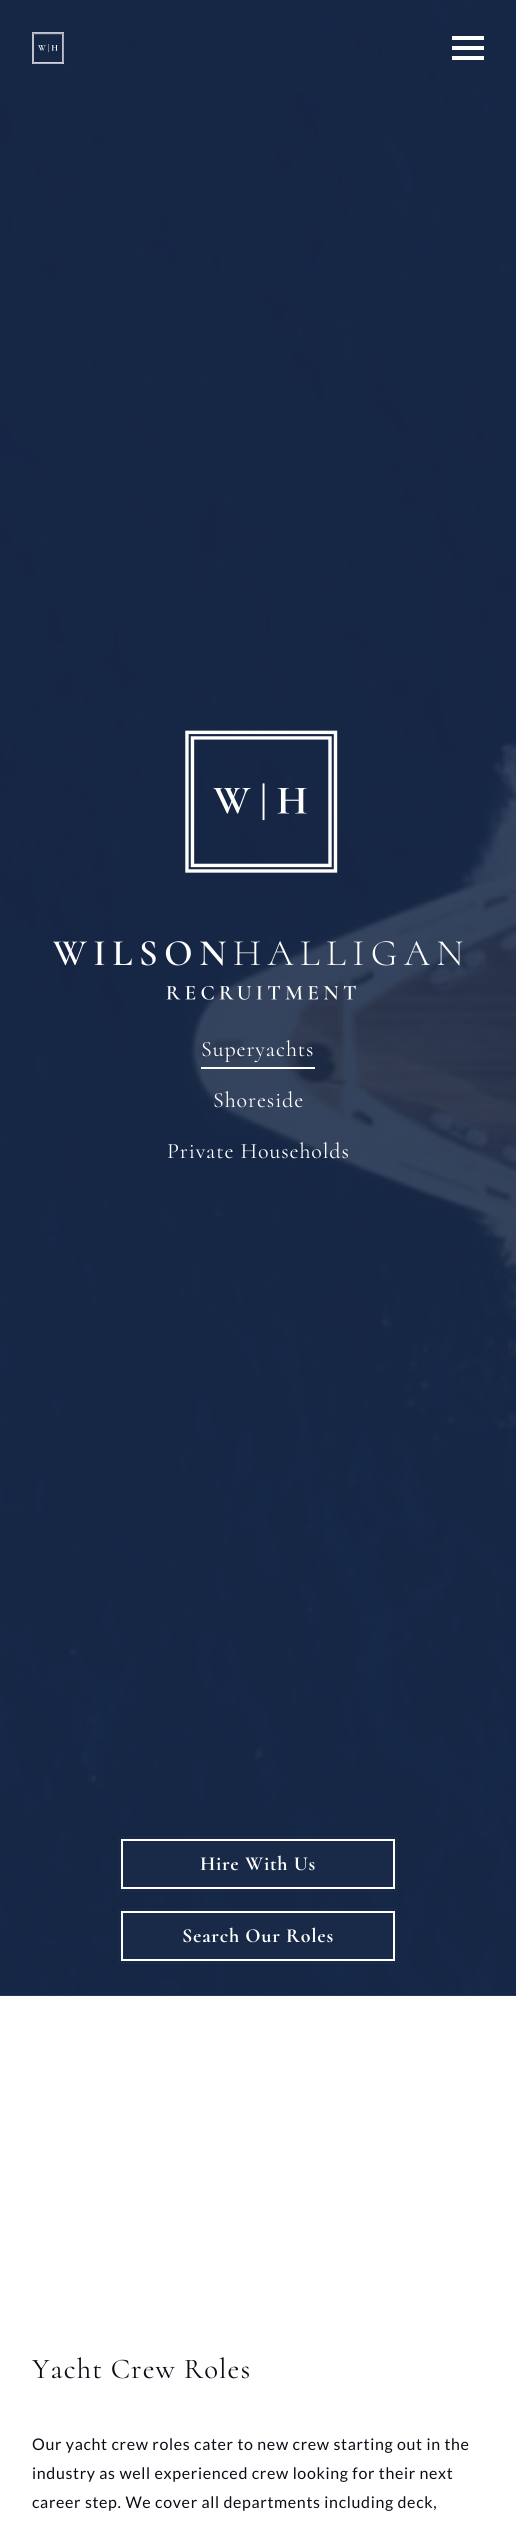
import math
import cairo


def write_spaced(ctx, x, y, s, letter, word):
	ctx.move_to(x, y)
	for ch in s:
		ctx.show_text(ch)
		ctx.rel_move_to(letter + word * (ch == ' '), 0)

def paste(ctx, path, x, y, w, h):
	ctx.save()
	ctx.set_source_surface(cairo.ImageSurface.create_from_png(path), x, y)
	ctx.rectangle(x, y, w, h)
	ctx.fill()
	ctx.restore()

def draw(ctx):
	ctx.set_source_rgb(1, 1, 1)
	ctx.paint()
	paste(ctx, 'media/3.png', 0, 1995, 516, 1)
	paste(ctx, 'media/2.png', 0, 0, 516, 1996)
	paste(ctx, 'media/1.png', 32, 32, 32, 32)
	ctx.set_source_rgb(1, 1, 1)
	ctx.rectangle(452, 36, 32, 4)
	ctx.rectangle(452, 46, 32, 4)
	ctx.rectangle(452, 56, 32, 4)
	ctx.fill()
	paste(ctx, 'media/4.png', 53, 730, 410, 270)
	ctx.select_font_face('Cormorant')
	ctx.set_font_size(22)
	write_spaced(ctx, 201, 1056, 'Superyachts', 0.9, 0)
	ctx.rectangle(201, 1067, 114, 2)
	ctx.fill()
	write_spaced(ctx, 213, 1107, 'Shoreside', 0.9, 0)
	write_spaced(ctx, 167, 1158, 'Private Households', 0.9, 0)
	ctx.set_source_rgb(0.098, 0.165, 0.282)
	ctx.rectangle(118, 1836, 280, 56)
	ctx.fill()
	ctx.rectangle(122, 1840, 272, 48)
	ctx.set_source_rgb(1, 1, 1)
	ctx.stroke()
	ctx.select_font_face('Cormorant', cairo.FONT_SLANT_NORMAL, cairo.FONT_WEIGHT_BOLD)
	ctx.set_font_size(20)
	write_spaced(ctx, 200, 1870, 'Hire With Us', 0.75, 0)
	ctx.set_source_rgb(0.098, 0.165, 0.282)
	ctx.rectangle(118, 1908, 280, 56)
	ctx.fill()
	ctx.rectangle(122, 1912, 272, 48)
	ctx.set_source_rgb(1, 1, 1)
	ctx.stroke()
	write_spaced(ctx, 182, 1942, 'Search Our Roles', 0.75, 0)
	ctx.select_font_face('Cormorant')
	ctx.set_font_size(28.75)
	ctx.set_source_rgb(0.047, 0.047, 0.086)
	write_spaced(ctx, 32, 2378, 'Yacht Crew Roles', 1.1, 0)
	ctx.select_font_face('Lato')
	ctx.set_font_size(16)
	for x, y, s in [
		(32, 2450, 'Our yacht crew roles cater to new crew starting out in the'),
		(32, 2479, 'industry as well experienced crew looking for their next'),
		(32, 2508, 'career step. We cover all departments including deck,'),
	]:
		write_spaced(ctx, x, y, s, 0.65, 0)


surface = cairo.ImageSurface(cairo.FORMAT_RGB24, 516, 2533)
ctx = cairo.Context(surface)
options = cairo.FontOptions()
options.set_hint_metrics(cairo.HINT_METRICS_OFF)
options.set_hint_style(cairo.HINT_STYLE_NONE)
ctx.set_font_options(options)
ctx.set_miter_limit(4)
draw(ctx)
surface.write_to_png('image.png')
